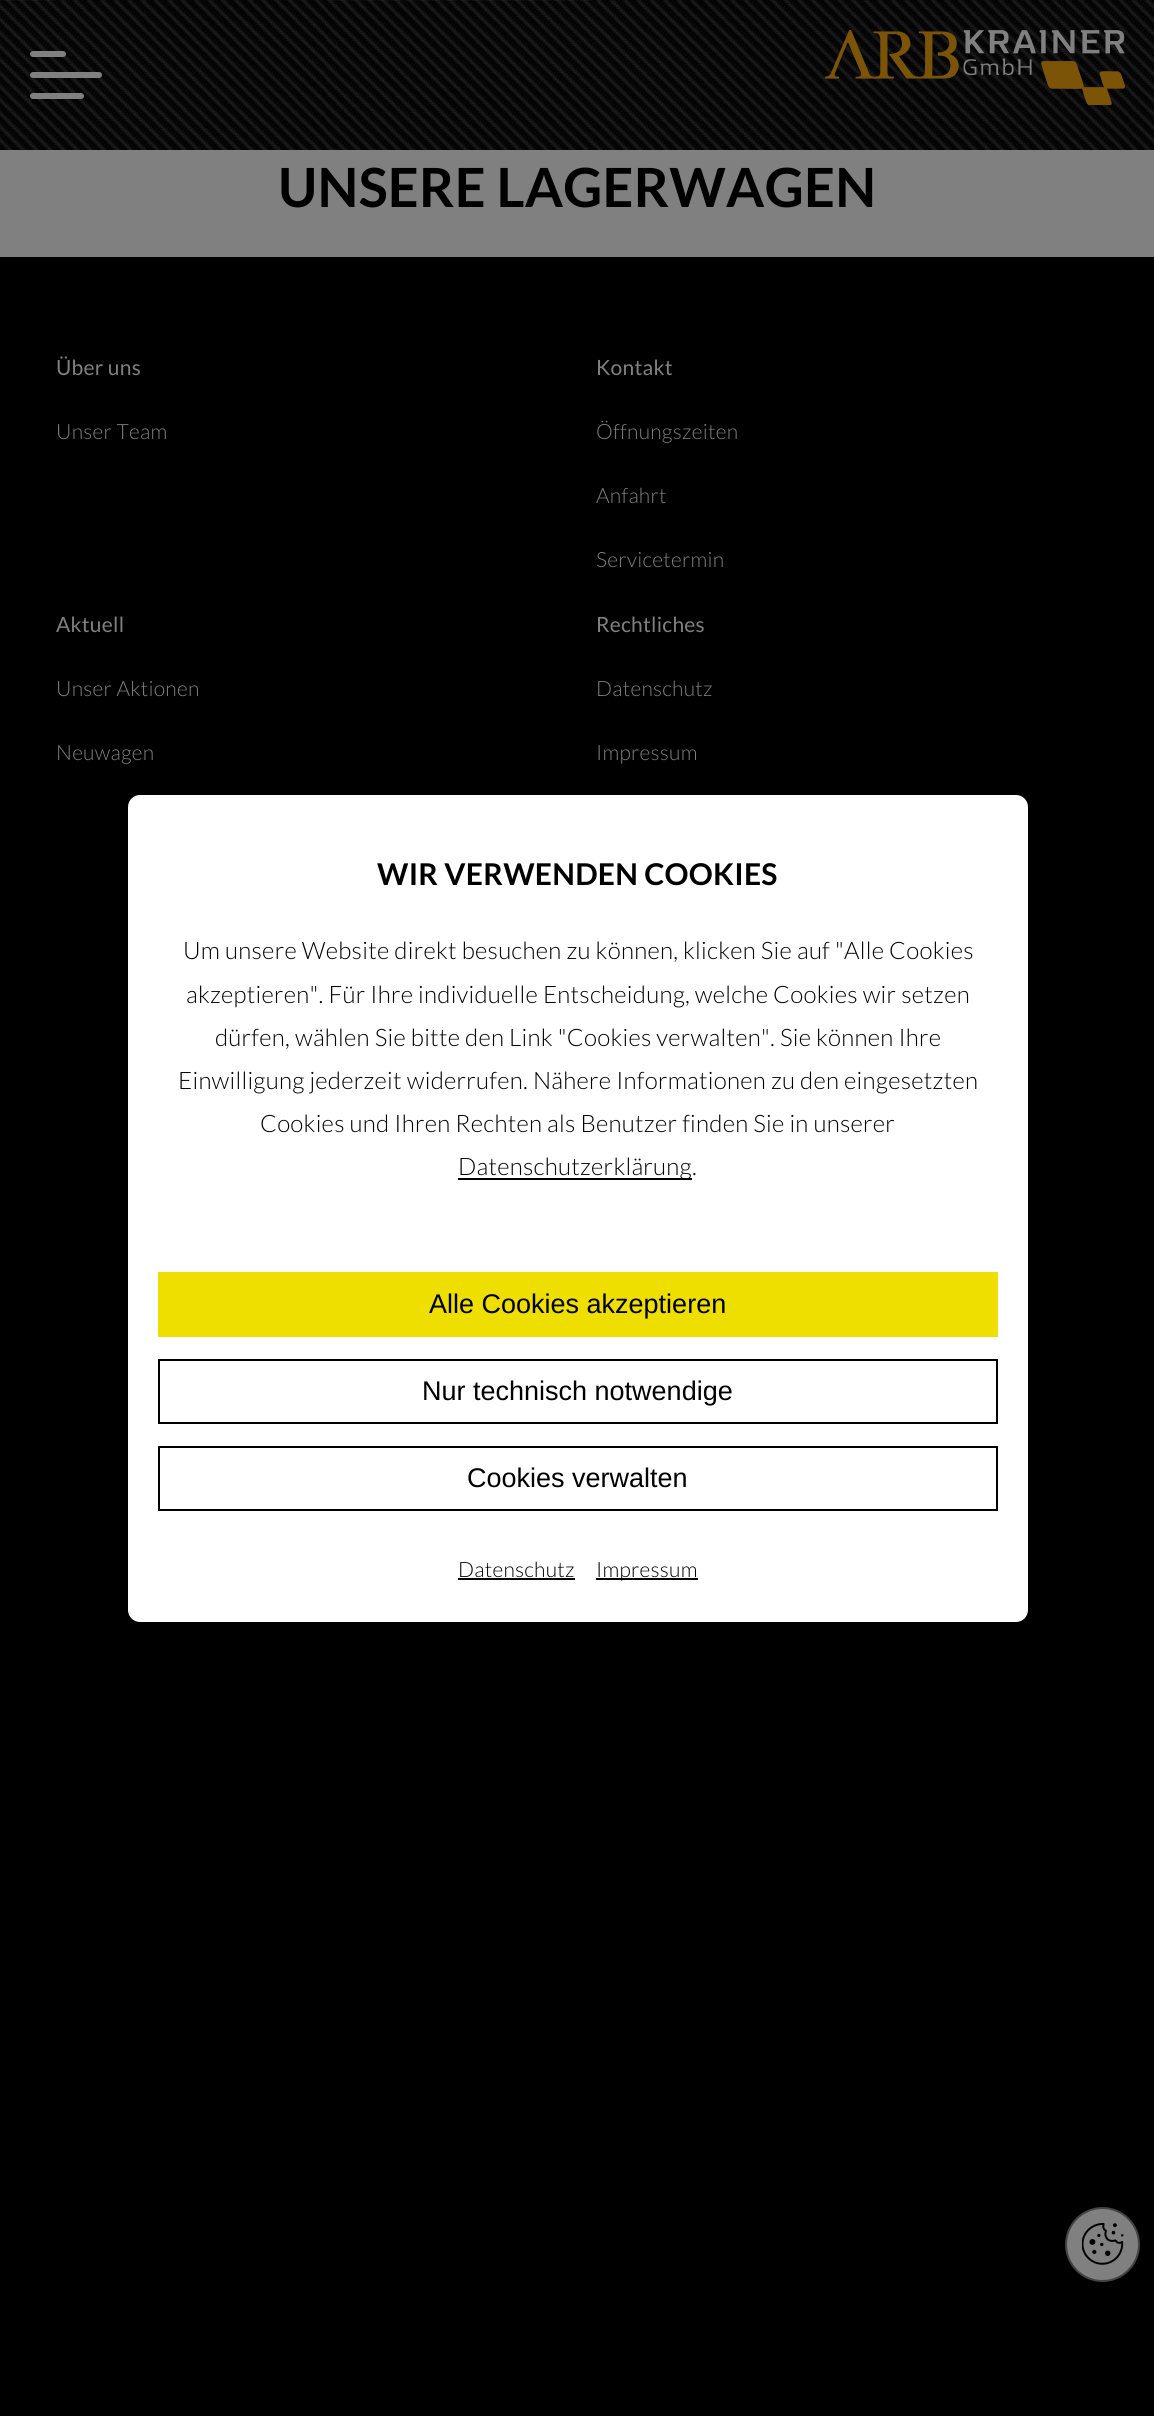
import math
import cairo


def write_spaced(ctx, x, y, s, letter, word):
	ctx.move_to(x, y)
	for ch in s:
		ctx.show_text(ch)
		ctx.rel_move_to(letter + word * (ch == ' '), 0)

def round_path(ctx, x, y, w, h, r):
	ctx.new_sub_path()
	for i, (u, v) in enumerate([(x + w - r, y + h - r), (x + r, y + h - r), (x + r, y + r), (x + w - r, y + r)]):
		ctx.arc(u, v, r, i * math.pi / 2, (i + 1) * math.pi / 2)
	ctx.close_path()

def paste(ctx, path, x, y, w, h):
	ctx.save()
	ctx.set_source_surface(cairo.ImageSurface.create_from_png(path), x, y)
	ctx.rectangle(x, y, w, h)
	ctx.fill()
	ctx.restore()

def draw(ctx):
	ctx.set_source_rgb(0.502, 0.502, 0.502)
	ctx.paint()
	paste(ctx, 'media/1.png', 0, 0, 1154, 150)
	ctx.set_source_rgb(0.502, 0.502, 0.502)
	round_path(ctx, 30, 51, 36, 6, 3)
	ctx.fill()
	round_path(ctx, 30, 72, 72, 6, 3)
	ctx.fill()
	round_path(ctx, 30, 93, 54, 6, 3)
	ctx.fill()
	paste(ctx, 'media/2.png', 825, 30, 300, 75)
	ctx.select_font_face('Lato', cairo.FONT_SLANT_NORMAL, cairo.FONT_WEIGHT_BOLD)
	ctx.set_font_size(54)
	ctx.set_source_rgb(0, 0, 0)
	write_spaced(ctx, 278, 207, 'UNSERE LAGERWAGEN', 0.25, 0)
	ctx.rectangle(0, 257, 1154, 2159)
	ctx.fill()
	ctx.select_font_face('Lato')
	ctx.set_font_size(21)
	ctx.set_source_rgb(0.502, 0.502, 0.502)
	write_spaced(ctx, 56, 375, 'Über uns', 0.25, 0)
	ctx.select_font_face('Lato Light')
	write_spaced(ctx, 56, 439, 'Unser Team', 0.25, 0)
	ctx.select_font_face('Lato')
	write_spaced(ctx, 596, 375, 'Kontakt', 0.25, 0)
	ctx.select_font_face('Lato Light')
	for x, y, s in [
		(596, 439, 'Öffnungszeiten'),
		(596, 503, 'Anfahrt'),
		(596, 567, 'Servicetermin'),
	]:
		write_spaced(ctx, x, y, s, 0.25, 0)
	ctx.select_font_face('Lato')
	write_spaced(ctx, 56, 632, 'Aktuell', 0.25, 0)
	ctx.select_font_face('Lato Light')
	write_spaced(ctx, 56, 696, 'Unser Aktionen', 0.25, 0)
	write_spaced(ctx, 56, 760, 'Neuwagen', 0.25, 0)
	ctx.select_font_face('Lato')
	write_spaced(ctx, 596, 632, 'Rechtliches', 0.25, 0)
	ctx.select_font_face('Lato Light')
	write_spaced(ctx, 596, 696, 'Datenschutz', 0.25, 0)
	write_spaced(ctx, 596, 760, 'Impressum', 0.25, 0)
	ctx.set_source_rgb(1, 1, 1)
	round_path(ctx, 128, 795, 900, 827, 12)
	ctx.fill()
	ctx.select_font_face('Lato', cairo.FONT_SLANT_NORMAL, cairo.FONT_WEIGHT_BOLD)
	ctx.set_font_size(30)
	ctx.set_source_rgb(0, 0, 0)
	write_spaced(ctx, 377, 885, 'WIR VERWENDEN COOKIES', 0.25, 0)
	ctx.select_font_face('Lato Light')
	ctx.set_font_size(24)
	for x, y, s in [
		(183, 959, 'Um unsere Website direkt besuchen zu können, klicken Sie auf "Alle Cookies'),
		(186, 1003, 'akzeptieren". Für Ihre individuelle Entscheidung, welche Cookies wir setzen'),
		(215, 1046, 'dürfen, wählen Sie bitte den Link "Cookies verwalten". Sie können Ihre'),
		(178, 1089, 'Einwilligung jederzeit widerrufen. Nähere Informationen zu den eingesetzten'),
		(260, 1132, 'Cookies und Ihren Rechten als Benutzer finden Sie in unserer'),
	]:
		write_spaced(ctx, x, y, s, 0.25, 0)
	ctx.rectangle(458, 1178, 234, 2)
	ctx.fill()
	write_spaced(ctx, 458, 1175, 'Datenschutzerklärung.', 0.25, 0)
	ctx.set_source_rgb(0.937, 0.875, 0)
	ctx.rectangle(158, 1272, 840, 65)
	ctx.fill()
	ctx.select_font_face('Liberation Sans')
	ctx.set_font_size(27)
	ctx.set_source_rgb(0, 0, 0)
	ctx.move_to(429, 1313)
	ctx.show_text('Alle Cookies akzeptieren')
	ctx.rectangle(159, 1360, 838, 63)
	ctx.stroke()
	ctx.move_to(422, 1400)
	ctx.show_text('Nur technisch notwendige')
	ctx.rectangle(159, 1447, 838, 63)
	ctx.stroke()
	ctx.move_to(467, 1487)
	ctx.show_text('Cookies verwalten')
	ctx.select_font_face('Lato Light')
	ctx.set_font_size(21)
	write_spaced(ctx, 458, 1577, 'Datenschutz', 0.25, 0)
	ctx.rectangle(458, 1578, 117, 2)
	ctx.fill()
	ctx.rectangle(596, 1578, 102, 2)
	ctx.fill()
	write_spaced(ctx, 596, 1577, 'Impressum', 0.25, 0)
	ctx.set_source_rgb(0.502, 0.502, 0.502)
	ctx.new_path()
	ctx.arc(1102.5, 2244.5, 36.5, 0, 2 * math.pi)
	ctx.fill_preserve()
	ctx.set_source_rgb(0.267, 0.267, 0.267)
	ctx.stroke()
	paste(ctx, 'media/3.png', 1082, 2223, 42, 42)


surface = cairo.ImageSurface(cairo.FORMAT_RGB24, 1154, 2416)
ctx = cairo.Context(surface)
options = cairo.FontOptions()
options.set_hint_metrics(cairo.HINT_METRICS_OFF)
options.set_hint_style(cairo.HINT_STYLE_NONE)
ctx.set_font_options(options)
ctx.set_miter_limit(4)
draw(ctx)
surface.write_to_png('image.png')
